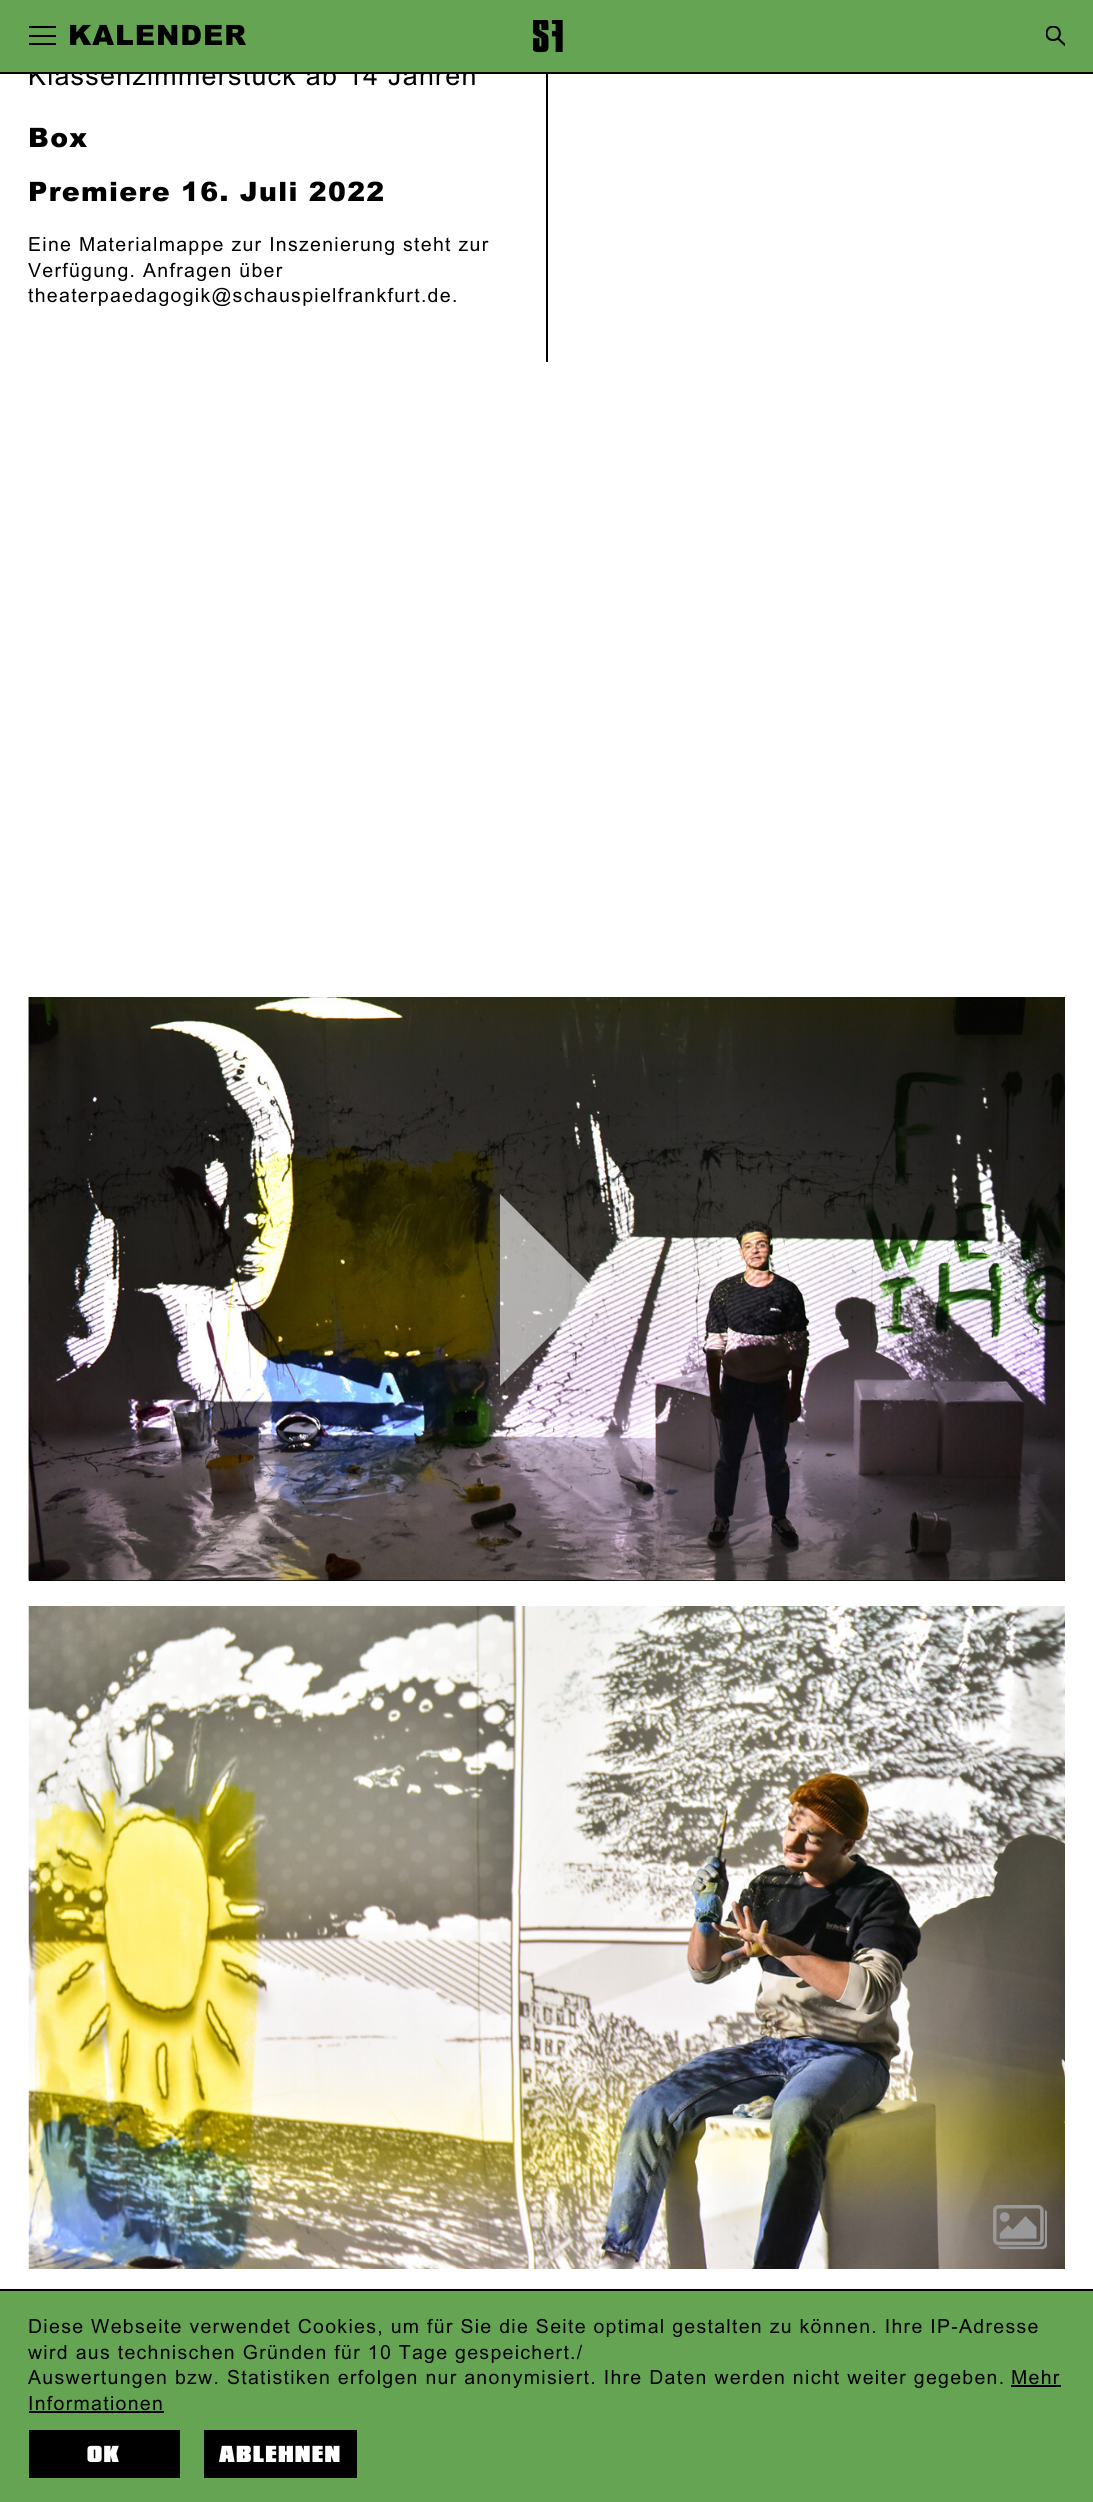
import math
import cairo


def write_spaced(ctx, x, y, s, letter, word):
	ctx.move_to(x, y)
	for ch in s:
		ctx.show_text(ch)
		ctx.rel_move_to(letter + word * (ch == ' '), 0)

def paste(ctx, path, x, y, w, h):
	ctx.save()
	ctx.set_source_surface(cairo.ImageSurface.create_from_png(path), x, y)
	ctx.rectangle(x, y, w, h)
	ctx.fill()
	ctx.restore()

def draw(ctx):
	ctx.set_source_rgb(1, 1, 1)
	ctx.paint()
	ctx.select_font_face('Arial')
	ctx.set_font_size(26.75)
	ctx.set_source_rgb(0, 0, 0)
	write_spaced(ctx, 28, 85, 'Klassenzimmerstück ab 14 Jahren', 1.32, 0)
	ctx.set_source_rgb(0.392, 0.643, 0.325)
	ctx.rectangle(0, 0, 1093, 72)
	ctx.fill()
	ctx.set_source_rgb(0, 0, 0)
	ctx.rectangle(0, 72, 1093, 2)
	ctx.rectangle(29, 26, 27, 2)
	ctx.rectangle(29, 35, 27, 2)
	ctx.rectangle(29, 43, 27, 2)
	ctx.fill()
	ctx.select_font_face('Arial Black')
	ctx.set_font_size(28)
	write_spaced(ctx, 68, 45, 'KALENDER', 1, 0)
	paste(ctx, 'media/1.png', 533, 20, 30, 33)
	ctx.save()
	ctx.rectangle(1046, 26, 19, 21)
	ctx.clip()
	ctx.new_path()
	ctx.move_to(1053, 40)
	ctx.curve_to(1062, 40, 1062, 27, 1053.5, 26.5)
	ctx.curve_to(1044.5, 26.5, 1044, 40, 1053, 40)
	ctx.close_path()
	ctx.move_to(1058, 38.5)
	ctx.line_to(1065.5, 45.5)
	ctx.set_line_width(2.1)
	ctx.stroke()
	ctx.restore()
	ctx.rectangle(546, 74, 2, 288)
	ctx.fill()
	ctx.set_font_size(26.75)
	write_spaced(ctx, 28, 147, 'Box', 1.32, 0)
	write_spaced(ctx, 28, 201, 'Premiere 16. Juli 2022', 1.32, 0)
	ctx.select_font_face('Arial')
	ctx.set_font_size(19.45)
	for x, y, s in [
		(28, 251, 'Eine Materialmappe zur Inszenierung steht zur'),
		(28, 277, 'Verfügung. Anfragen über'),
		(28, 302, 'theaterpaedagogik@schauspielfrankfurt.de.'),
	]:
		write_spaced(ctx, x, y, s, 1.32, 0)
	paste(ctx, 'media/2.png', 28, 997, 1, 584)
	ctx.rectangle(29, 1580, 1036, 1)
	ctx.fill()
	paste(ctx, 'media/3.png', 28, 997, 1037, 584)
	ctx.set_source_rgba(1, 1, 1, 0.6)
	ctx.new_path()
	ctx.move_to(500, 1386)
	ctx.line_to(500, 1194)
	ctx.line_to(596, 1290)
	ctx.close_path()
	ctx.fill()
	paste(ctx, 'media/4.png', 28, 1606, 1037, 663)
	paste(ctx, 'media/5.png', 993, 2205, 54, 45)
	ctx.set_source_rgb(0.392, 0.643, 0.325)
	ctx.rectangle(0, 2291, 1093, 211)
	ctx.fill()
	ctx.set_source_rgb(0, 0, 0)
	ctx.rectangle(0, 2289, 1093, 2)
	ctx.fill()
	for x, y, s in [
		(28, 2333, 'Diese Webseite verwendet Cookies, um für Sie die Seite optimal gestalten zu können. Ihre IP-Adresse'),
		(28, 2359, 'wird aus technischen Gründen für 10 Tage gespeichert./'),
		(28, 2384, 'Auswertungen bzw. Statistiken erfolgen nur anonymisiert. Ihre Daten werden nicht weiter gegeben.'),
		(1011, 2384, 'Mehr'),
	]:
		write_spaced(ctx, x, y, s, 1.32, 0)
	ctx.rectangle(1011, 2385, 50, 2)
	ctx.fill()
	write_spaced(ctx, 28, 2410, 'Informationen', 1.32, 0)
	ctx.rectangle(29, 2411, 135, 2)
	ctx.fill()
	ctx.rectangle(29, 2430, 151, 48)
	ctx.fill()
	ctx.select_font_face('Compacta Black')
	ctx.set_font_size(24.25)
	ctx.set_source_rgb(1, 1, 1)
	write_spaced(ctx, 87, 2462, 'OK', 1.75, 0)
	ctx.set_source_rgb(0, 0, 0)
	ctx.rectangle(204, 2430, 153, 48)
	ctx.fill()
	ctx.set_source_rgb(1, 1, 1)
	write_spaced(ctx, 219, 2462, 'ABLEHNEN', 1.75, 0)


surface = cairo.ImageSurface(cairo.FORMAT_RGB24, 1093, 2502)
ctx = cairo.Context(surface)
options = cairo.FontOptions()
options.set_hint_metrics(cairo.HINT_METRICS_OFF)
options.set_hint_style(cairo.HINT_STYLE_NONE)
ctx.set_font_options(options)
ctx.set_miter_limit(4)
draw(ctx)
surface.write_to_png('image.png')
